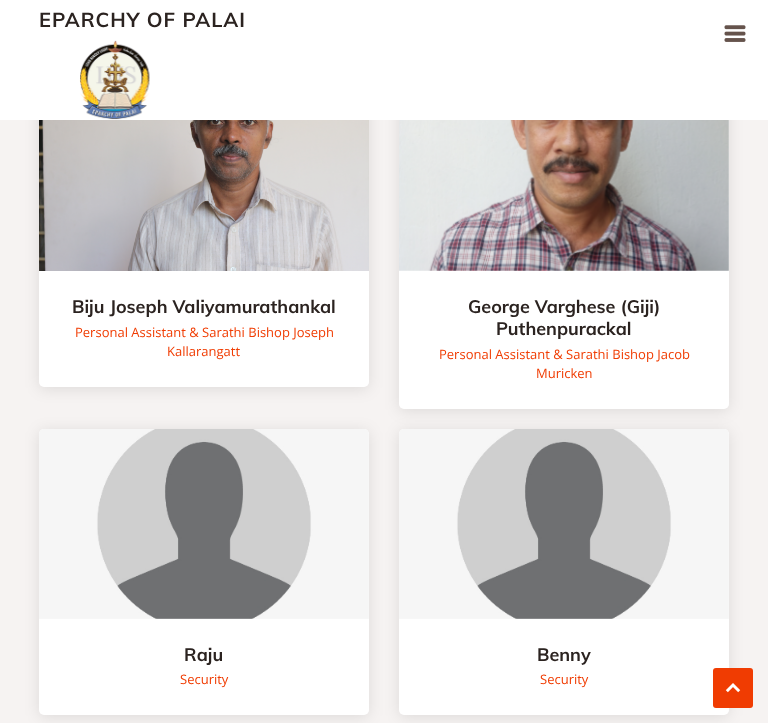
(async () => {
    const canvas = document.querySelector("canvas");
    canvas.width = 768;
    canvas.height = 723;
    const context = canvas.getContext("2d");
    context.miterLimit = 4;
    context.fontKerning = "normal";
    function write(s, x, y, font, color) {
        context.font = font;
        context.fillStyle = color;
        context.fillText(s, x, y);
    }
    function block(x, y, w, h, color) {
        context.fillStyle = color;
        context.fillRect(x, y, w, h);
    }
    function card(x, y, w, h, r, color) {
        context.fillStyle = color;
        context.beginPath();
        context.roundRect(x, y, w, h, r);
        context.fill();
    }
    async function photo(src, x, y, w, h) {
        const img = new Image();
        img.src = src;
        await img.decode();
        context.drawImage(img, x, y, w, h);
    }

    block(0, 0, 768, 723, "rgb(246, 243, 242)");
    context.fillStyle = "rgba(0, 0, 0, 0.1)";
    context.filter = "blur(7.5px)";
    context.beginPath();
    context.roundRect(39, 83, 330, 306, 5);
    context.fill();
    context.filter = "none";
    card(39, 81, 330, 306, 5, "rgb(255, 255, 255)");
    context.fillStyle = "rgba(0, 0, 0, 0.1)";
    context.filter = "blur(7.5px)";
    context.beginPath();
    context.roundRect(399, 83, 330, 328, 5);
    context.fill();
    context.filter = "none";
    card(399, 81, 330, 328, 5, "rgb(255, 255, 255)");
    block(0, 0, 768, 120, "rgb(255, 255, 255)");
    context.letterSpacing = "1px";
    write("EPARCHY OF PALAI", 39, 27, "bold 20px Muli", "rgb(43, 35, 32)");
    await photo("media/1.png", 79, 40, 71, 80);
    await photo("media/2.png", 724, 25, 22, 17);
    await photo("media/3.png", 39, 120, 330, 151);
    context.letterSpacing = "0px";
    write("Biju Joseph Valiyamurathankal", 72, 313, "bold 18px Muli", "rgb(43, 35, 32)");
    write("Personal Assistant & Sarathi Bishop Joseph", 75, 337, "13px Open Sans", "rgb(240, 60, 2)");
    write("Kallarangatt", 167, 356, "13px Open Sans", "rgb(240, 60, 2)");
    await photo("media/4.png", 399, 120, 330, 151);
    write("George Varghese (Giji)", 468, 313, "bold 18px Muli", "rgb(43, 35, 32)");
    write("Puthenpurackal", 496, 335, "bold 18px Muli", "rgb(43, 35, 32)");
    write("Personal Assistant & Sarathi Bishop Jacob", 439, 359, "13px Open Sans", "rgb(240, 60, 2)");
    write("Muricken", 536, 378, "13px Open Sans", "rgb(240, 60, 2)");
    context.fillStyle = "rgba(0, 0, 0, 0.1)";
    context.filter = "blur(7.5px)";
    context.beginPath();
    context.roundRect(39, 431, 330, 286, 5);
    context.fill();
    context.filter = "none";
    card(39, 429, 330, 286, 5, "rgb(255, 255, 255)");
    await photo("media/5.png", 39, 429, 330, 190);
    write("Raju", 184, 661, "bold 18px Muli", "rgb(43, 35, 32)");
    write("Security", 180, 684, "13px Open Sans", "rgb(240, 60, 2)");
    context.fillStyle = "rgba(0, 0, 0, 0.1)";
    context.filter = "blur(7.5px)";
    context.beginPath();
    context.roundRect(399, 431, 330, 286, 5);
    context.fill();
    context.filter = "none";
    card(399, 429, 330, 286, 5, "rgb(255, 255, 255)");
    await photo("media/6.png", 399, 429, 330, 190);
    write("Benny", 537, 661, "bold 18px Muli", "rgb(43, 35, 32)");
    write("Security", 540, 684, "13px Open Sans", "rgb(240, 60, 2)");
    card(713, 668, 40, 40, 3, "rgb(240, 60, 2)");
    await photo("media/7.png", 725, 683, 16, 10);
})();
